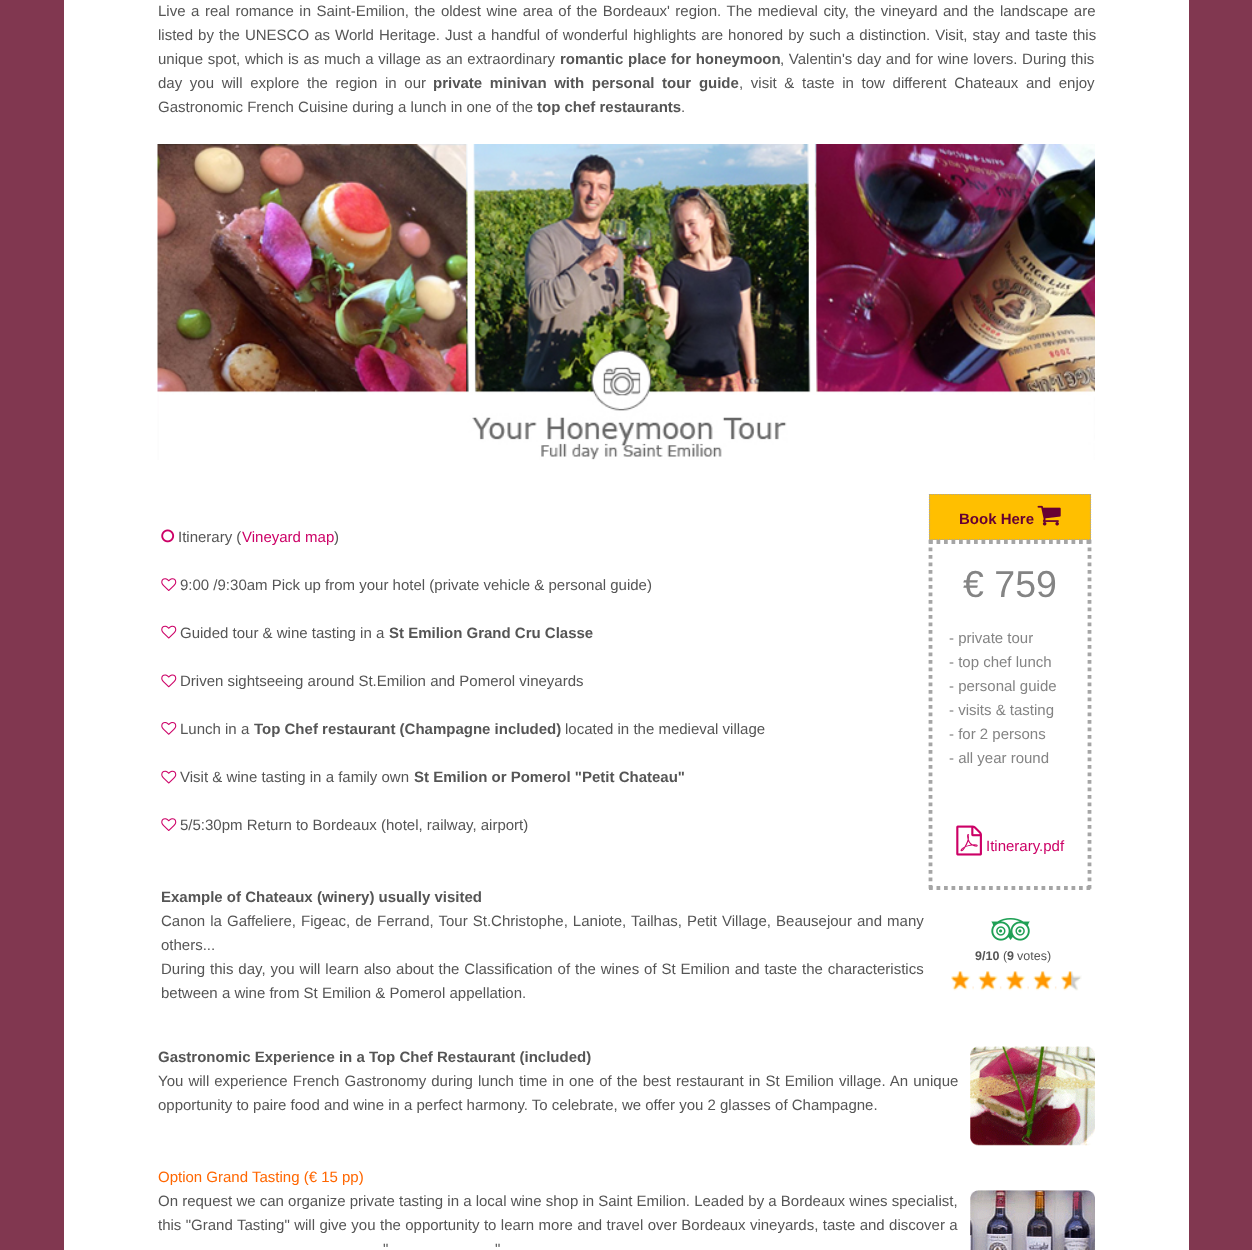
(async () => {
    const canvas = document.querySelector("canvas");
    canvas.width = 1252;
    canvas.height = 1250;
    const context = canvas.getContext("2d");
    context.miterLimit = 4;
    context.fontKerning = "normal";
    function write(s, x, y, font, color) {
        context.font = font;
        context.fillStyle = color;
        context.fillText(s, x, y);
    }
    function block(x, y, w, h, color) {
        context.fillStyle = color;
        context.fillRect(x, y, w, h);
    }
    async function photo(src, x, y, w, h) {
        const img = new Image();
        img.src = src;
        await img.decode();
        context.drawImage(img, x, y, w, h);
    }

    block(0, 0, 1252, 1250, "rgb(129, 55, 80)");
    block(64, 0, 1125, 1250, "rgb(255, 255, 255)");
    context.wordSpacing = "1.35px";
    write("Live a real romance in Saint-Emilion, the oldest wine area of the Bordeaux' region. The medieval city, the vineyard and the landscape are", 158, 16, "15px Liberation Sans", "rgb(85, 85, 85)");
    context.wordSpacing = "0.9px";
    write("listed by the UNESCO as World Heritage. Just a handful of wonderful highlights are honored by such a distinction. Visit, stay and taste this", 158, 40, "15px Liberation Sans", "rgb(85, 85, 85)");
    context.wordSpacing = "0.5px";
    write("unique spot, which is as much a village as an extraordinary", 158, 64, "15px Liberation Sans", "rgb(85, 85, 85)");
    write("romantic place for honeymoon", 560, 64, "bold 15px Liberation Sans", "rgb(85, 85, 85)");
    write(", Valentin's day and for wine lovers. During this", 780, 64, "15px Liberation Sans", "rgb(85, 85, 85)");
    context.wordSpacing = "3.5px";
    write("day you will explore the region in our", 158, 88, "15px Liberation Sans", "rgb(85, 85, 85)");
    write("private minivan with personal tour guide", 433, 88, "bold 15px Liberation Sans", "rgb(85, 85, 85)");
    write(", visit & taste in tow different Chateaux and enjoy", 739, 88, "15px Liberation Sans", "rgb(85, 85, 85)");
    context.wordSpacing = "0px";
    write("Gastronomic French Cuisine during a lunch in one of the", 158, 112, "15px Liberation Sans", "rgb(85, 85, 85)");
    write("top chef restaurants", 537, 112, "bold 15px Liberation Sans", "rgb(85, 85, 85)");
    write(".", 681, 112, "15px Liberation Sans", "rgb(85, 85, 85)");
    await photo("media/1.png", 157, 144, 938, 316);
    await photo("media/2.png", 161, 529, 14, 14);
    write("Itinerary (", 178, 542, "15px Liberation Sans", "rgb(85, 85, 85)");
    write("Vineyard map", 242, 542, "15px Liberation Sans", "rgb(204, 0, 102)");
    write(")", 334, 542, "15px Liberation Sans", "rgb(85, 85, 85)");
    await photo("media/3.png", 161, 578, 16, 13);
    write("9:00 /9:30am Pick up from your hotel (private vehicle & personal guide)", 180, 590, "15px Liberation Sans", "rgb(85, 85, 85)");
    await photo("media/4.png", 161, 625, 16, 14);
    write("Guided tour & wine tasting in a", 180, 638, "15px Liberation Sans", "rgb(85, 85, 85)");
    write("St Emilion Grand Cru Classe", 389, 638, "bold 15px Liberation Sans", "rgb(85, 85, 85)");
    await photo("media/5.png", 161, 674, 16, 14);
    write("Driven sightseeing around St.Emilion and Pomerol vineyards", 180, 686, "15px Liberation Sans", "rgb(85, 85, 85)");
    await photo("media/6.png", 161, 722, 16, 13);
    write("Lunch in a", 180, 734, "15px Liberation Sans", "rgb(85, 85, 85)");
    write("Top Chef restaurant (Champagne included)", 254, 734, "bold 15px Liberation Sans", "rgb(85, 85, 85)");
    write("located in the medieval village", 565, 734, "15px Liberation Sans", "rgb(85, 85, 85)");
    await photo("media/4.png", 161, 770, 16, 14);
    write("Visit & wine tasting in a family own", 180, 782, "15px Liberation Sans", "rgb(85, 85, 85)");
    write("St Emilion or Pomerol \"Petit Chateau\"", 414, 782, "bold 15px Liberation Sans", "rgb(85, 85, 85)");
    await photo("media/3.png", 161, 818, 16, 13);
    write("5/5:30pm Return to Bordeaux (hotel, railway, airport)", 180, 830, "15px Liberation Sans", "rgb(85, 85, 85)");
    write("Example of Chateaux (winery) usually visited", 161, 902, "bold 15px Liberation Sans", "rgb(85, 85, 85)");
    context.wordSpacing = "0.9px";
    write("Canon la Gaffeliere, Figeac, de Ferrand, Tour St.Christophe, Laniote, Tailhas, Petit Village, Beausejour and many", 161, 926, "15px Liberation Sans", "rgb(85, 85, 85)");
    context.wordSpacing = "0px";
    write("others...", 161, 950, "15px Liberation Sans", "rgb(85, 85, 85)");
    context.wordSpacing = "0.75px";
    write("During this day, you will learn also about the Classification of the wines of St Emilion and taste the characteristics", 161, 974, "15px Liberation Sans", "rgb(85, 85, 85)");
    context.wordSpacing = "0px";
    write("between a wine from St Emilion & Pomerol appellation.", 161, 998, "15px Liberation Sans", "rgb(85, 85, 85)");
    block(929, 494, 162, 46, "rgb(255, 191, 0)");
    context.beginPath();
    context.moveTo(929, 494.5);
    context.lineTo(1091, 494.5);
    context.strokeStyle = "rgb(165, 165, 165)";
    context.lineWidth = 1.2;
    context.setLineDash([1.25, 1.25]);
    context.stroke();
    context.beginPath();
    context.moveTo(1090.5, 494);
    context.lineTo(1090.5, 540);
    context.stroke();
    context.beginPath();
    context.moveTo(929, 542);
    context.lineTo(1091, 542);
    context.lineWidth = 3.8;
    context.setLineDash([3.75, 3.75]);
    context.stroke();
    context.beginPath();
    context.moveTo(1089.5, 540);
    context.lineTo(1089.5, 890);
    context.stroke();
    context.beginPath();
    context.moveTo(929, 888);
    context.lineTo(1091, 888);
    context.stroke();
    context.beginPath();
    context.moveTo(930.5, 540);
    context.lineTo(930.5, 890);
    context.stroke();
    context.beginPath();
    context.moveTo(929, 539.5);
    context.lineTo(1091, 539.5);
    context.lineWidth = 1.2;
    context.setLineDash([1.25, 1.25]);
    context.stroke();
    context.beginPath();
    context.moveTo(929.5, 494);
    context.lineTo(929.5, 540);
    context.stroke();
    write("Book Here", 959, 524, "bold 15px Liberation Sans", "rgb(102, 0, 51)");
    await photo("media/7.png", 1037, 505, 24, 21);
    write("€ 759", 963, 597, "37.5px Liberation Sans", "rgb(132, 132, 132)");
    write("- private tour", 949, 643, "15px Liberation Sans", "rgb(132, 132, 132)");
    write("- top chef lunch", 949, 667, "15px Liberation Sans", "rgb(132, 132, 132)");
    write("- personal guide", 949, 691, "15px Liberation Sans", "rgb(132, 132, 132)");
    write("- visits & tasting", 949, 715, "15px Liberation Sans", "rgb(132, 132, 132)");
    write("- for 2 persons", 949, 739, "15px Liberation Sans", "rgb(132, 132, 132)");
    write("- all year round", 949, 763, "15px Liberation Sans", "rgb(132, 132, 132)");
    await photo("media/8.png", 956, 825, 26, 31);
    write("Itinerary.pdf", 986, 851, "15px Liberation Sans", "rgb(204, 0, 102)");
    await photo("media/9.png", 991, 918, 39, 23);
    write("9/10", 975, 960, "bold 12.5px Liberation Sans", "rgb(85, 85, 85)");
    write("(", 1003, 960, "12.5px Liberation Sans", "rgb(85, 85, 85)");
    write("9", 1007, 960, "bold 12.5px Liberation Sans", "rgb(85, 85, 85)");
    write("votes)", 1017, 960, "12.5px Liberation Sans", "rgb(85, 85, 85)");
    await photo("media/10.png", 1071, 971, 11, 20);
    await photo("media/11.png", 951, 971, 121, 20);
    write("Gastronomic Experience in a Top Chef Restaurant (included)", 158, 1062, "bold 15px Liberation Sans", "rgb(85, 85, 85)");
    await photo("media/12.png", 970, 1046, 125, 100);
    context.wordSpacing = "0.9px";
    write("You will experience French Gastronomy during lunch time in one of the best restaurant in St Emilion village. An unique", 158, 1086, "15px Liberation Sans", "rgb(85, 85, 85)");
    context.wordSpacing = "0px";
    write("opportunity to paire food and wine in a perfect harmony. To celebrate, we offer you 2 glasses of Champagne.", 158, 1110, "15px Liberation Sans", "rgb(85, 85, 85)");
    write("Option Grand Tasting (€ 15 pp)", 158, 1182, "15px Liberation Sans", "rgb(255, 102, 0)");
    write("On request we can organize private tasting in a local wine shop in Saint Emilion. Leaded by a Bordeaux wines specialist,", 158, 1206, "15px Liberation Sans", "rgb(85, 85, 85)");
    context.wordSpacing = "0.25px";
    write("this \"Grand Tasting\" will give you the opportunity to learn more and travel over Bordeaux vineyards, taste and discover a", 158, 1230, "15px Liberation Sans", "rgb(85, 85, 85)");
    context.wordSpacing = "1px";
    write("\"", 383, 1254, "15px Liberation Sans", "rgb(85, 85, 85)");
    write("\"", 495, 1254, "15px Liberation Sans", "rgb(85, 85, 85)");
    await photo("media/13.png", 970, 1190, 125, 60);
})();
